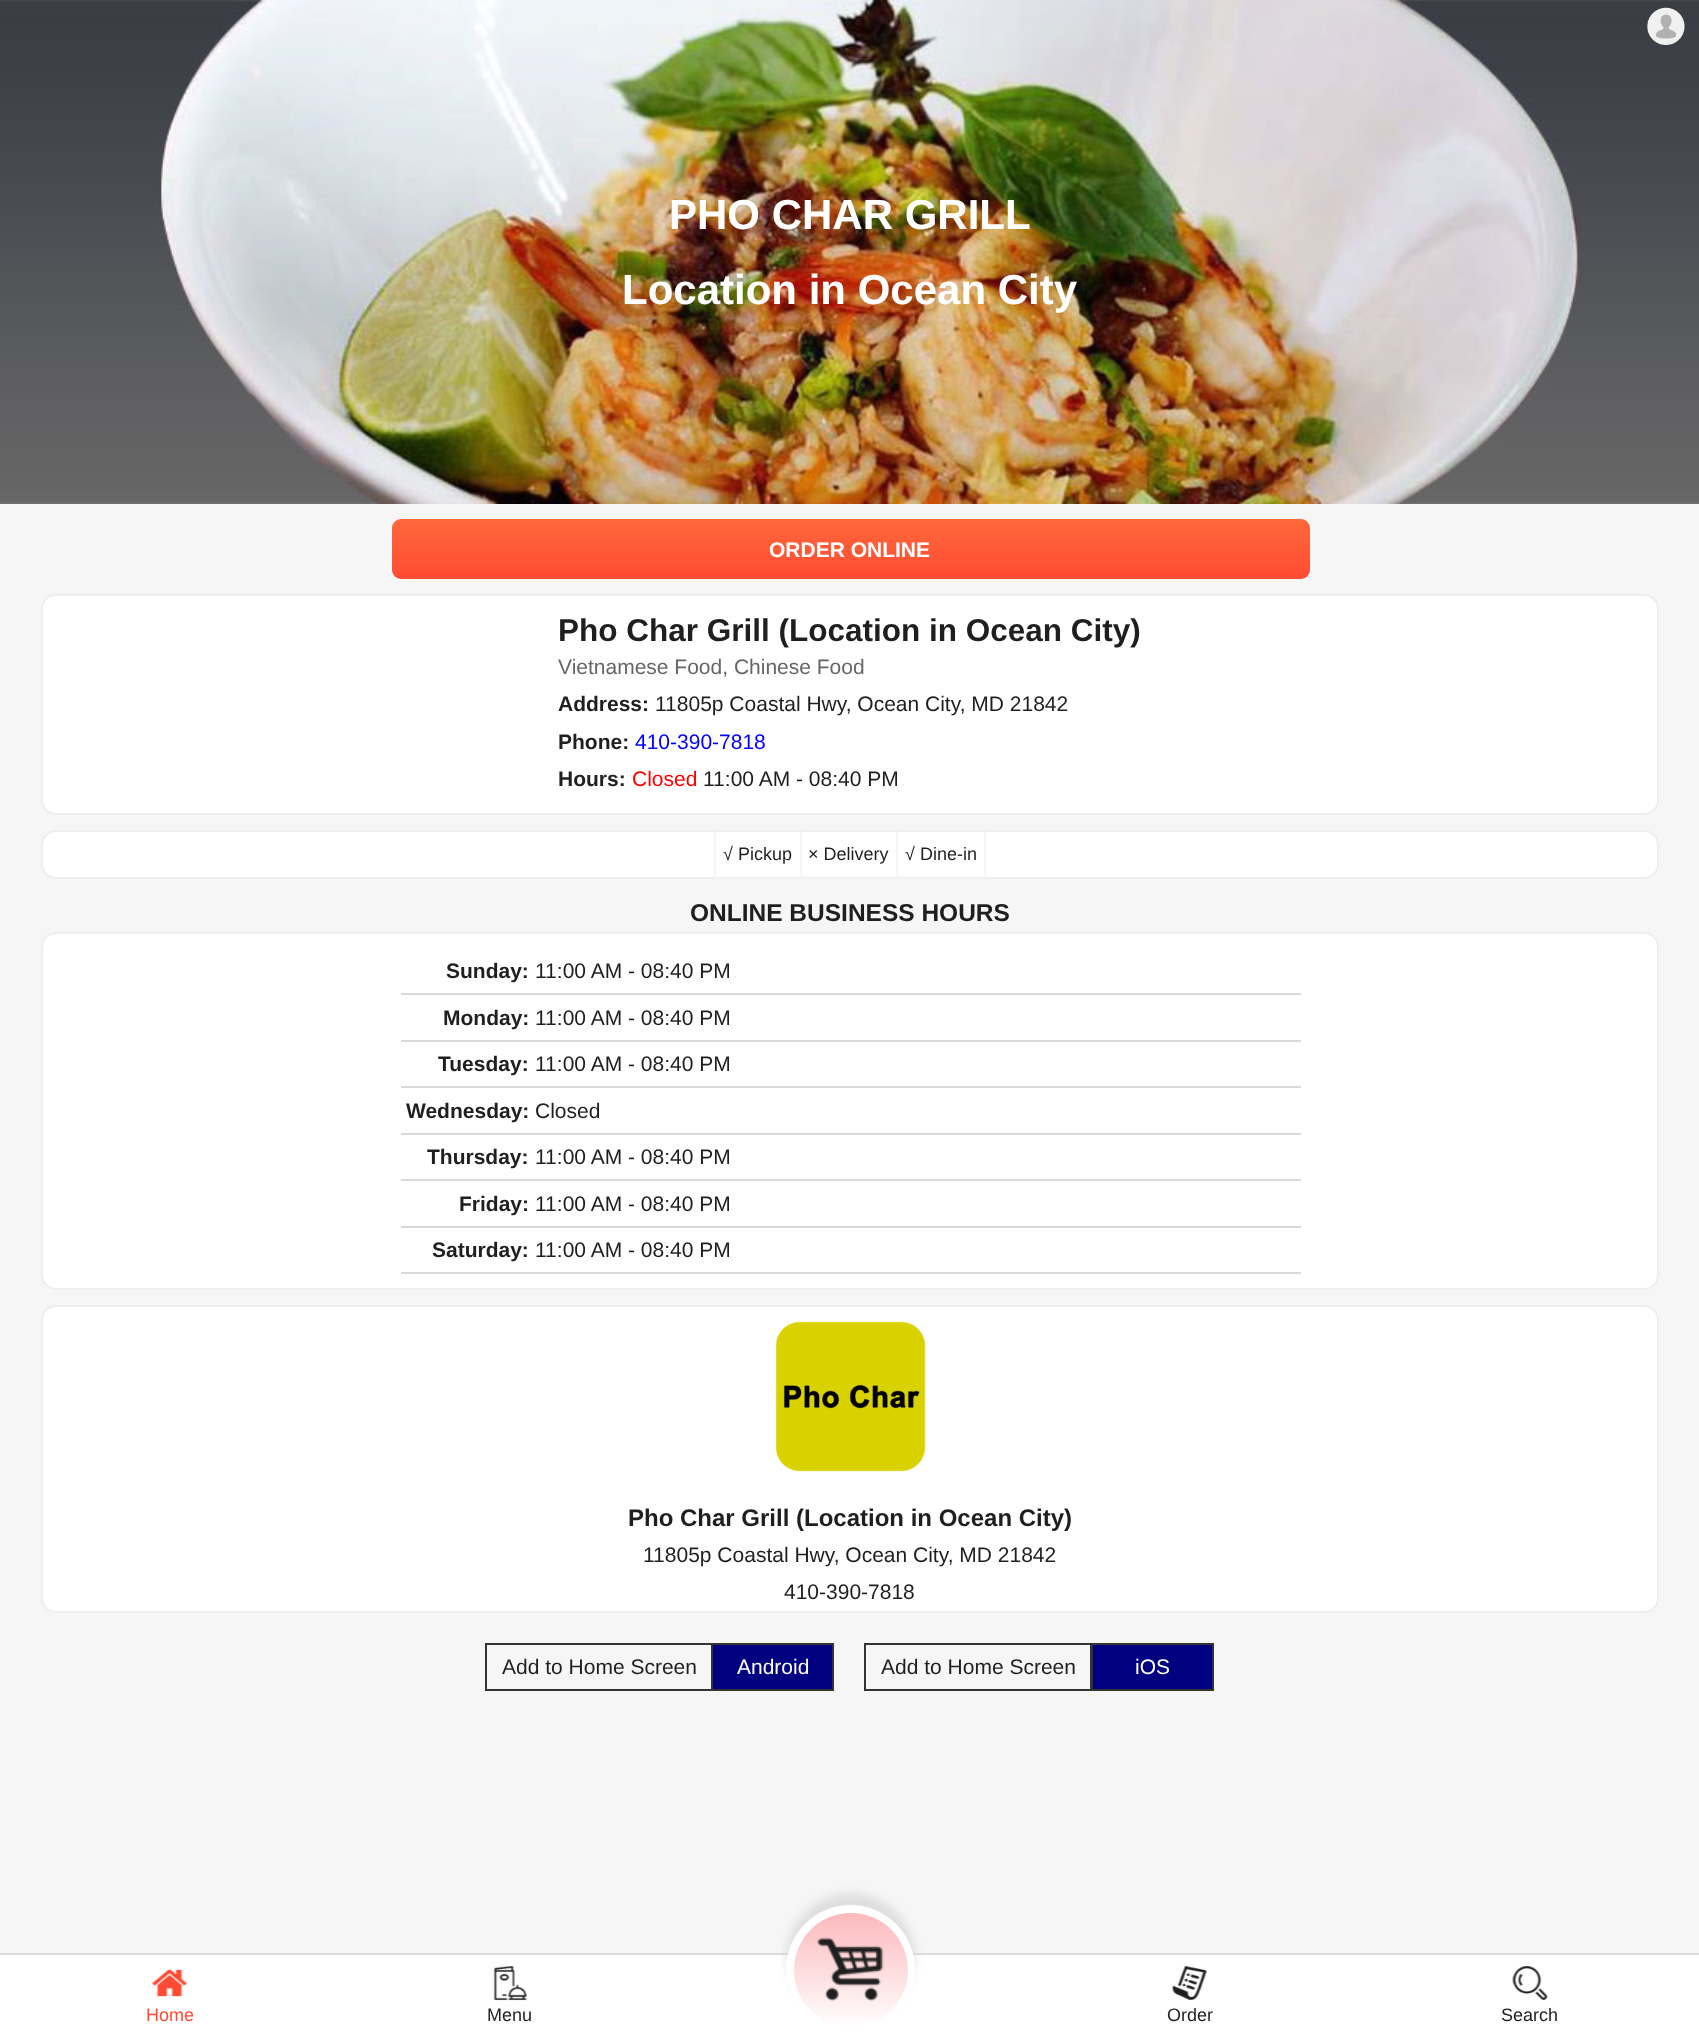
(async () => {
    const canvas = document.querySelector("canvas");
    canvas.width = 1699;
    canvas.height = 2033;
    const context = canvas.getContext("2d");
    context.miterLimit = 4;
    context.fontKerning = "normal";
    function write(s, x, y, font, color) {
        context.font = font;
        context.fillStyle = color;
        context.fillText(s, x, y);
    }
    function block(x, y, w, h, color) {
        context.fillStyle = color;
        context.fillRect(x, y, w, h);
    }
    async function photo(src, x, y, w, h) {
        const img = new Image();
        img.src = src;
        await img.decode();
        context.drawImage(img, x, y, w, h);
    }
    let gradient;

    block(0, 0, 1699, 2033, "rgb(246, 246, 246)");
    await photo("media/2.png", 0, 0, 1699, 504);
    await photo("media/1.png", 1647, 7, 38, 38);
    write("PHO CHAR GRILL", 669, 229, "bold 42px Liberation Sans", "rgb(255, 255, 255)");
    write("Location in Ocean City", 622, 304, "bold 42px Liberation Sans", "rgb(255, 255, 255)");
    gradient = context.createLinearGradient(851, 519, 851, 579);
    gradient.addColorStop(0.05, "rgb(255, 103, 58)");
    gradient.addColorStop(1, "rgb(255, 75, 51)");
    context.fillStyle = gradient;
    context.beginPath();
    context.roundRect(392, 519, 918, 60, 9);
    context.fill();
    write("ORDER ONLINE", 769, 557, "bold 21px Liberation Sans", "rgb(255, 255, 255)");
    context.beginPath();
    context.roundRect(42, 595, 1616, 219, 14);
    context.fill();
    context.strokeStyle = "rgb(238, 238, 238)";
    context.lineWidth = 2;
    context.stroke();
    write("Pho Char Grill (Location in Ocean City)", 558, 641, "bold 31.5px Liberation Sans", "rgb(31, 31, 31)");
    write("Vietnamese Food, Chinese Food", 558, 674, "21px Liberation Sans", "rgb(102, 102, 102)");
    write("Address:", 558, 711, "bold 21px Liberation Sans", "rgb(31, 31, 31)");
    write("11805p Coastal Hwy, Ocean City, MD 21842", 655, 711, "21px Liberation Sans", "rgb(31, 31, 31)");
    write("Phone:", 558, 749, "bold 21px Liberation Sans", "rgb(31, 31, 31)");
    write("410-390-7818", 635, 749, "21px Liberation Sans", "rgb(0, 0, 255)");
    write("Hours:", 558, 786, "bold 21px Liberation Sans", "rgb(31, 31, 31)");
    write("Closed", 632, 786, "21px Liberation Sans", "rgb(255, 0, 0)");
    write("11:00 AM - 08:40 PM", 703, 786, "21px Liberation Sans", "rgb(31, 31, 31)");
    context.fillStyle = "rgb(255, 255, 255)";
    context.beginPath();
    context.roundRect(42, 831, 1616, 47, 14);
    context.fill();
    context.stroke();
    block(800, 831, 2, 47, "rgb(246, 246, 246)");
    block(714, 876, 87, 2, "rgb(246, 246, 246)");
    block(714, 831, 2, 47, "rgb(246, 246, 246)");
    write("√ Pickup", 723, 860, "18px Liberation Sans", "rgb(31, 31, 31)");
    block(896, 831, 2, 47, "rgb(246, 246, 246)");
    block(801, 876, 96, 2, "rgb(246, 246, 246)");
    write("× Delivery", 808, 860, "18px Liberation Sans", "rgb(31, 31, 31)");
    block(984, 831, 2, 47, "rgb(246, 246, 246)");
    block(897, 876, 89, 2, "rgb(246, 246, 246)");
    write("√ Dine-in", 905, 860, "18px Liberation Sans", "rgb(31, 31, 31)");
    write("ONLINE BUSINESS HOURS", 690, 921, "bold 24.5px Liberation Sans", "rgb(31, 31, 31)");
    context.fillStyle = "rgb(255, 255, 255)";
    context.beginPath();
    context.roundRect(42, 933, 1616, 356, 14);
    context.fill();
    context.stroke();
    block(401, 993, 900, 2, "rgb(217, 217, 217)");
    write("Sunday:", 446, 978, "bold 21px Liberation Sans", "rgb(31, 31, 31)");
    write("11:00 AM - 08:40 PM", 535, 978, "21px Liberation Sans", "rgb(31, 31, 31)");
    block(401, 1040, 900, 2, "rgb(217, 217, 217)");
    write("Monday:", 443, 1025, "bold 21px Liberation Sans", "rgb(31, 31, 31)");
    write("11:00 AM - 08:40 PM", 535, 1025, "21px Liberation Sans", "rgb(31, 31, 31)");
    block(401, 1086, 900, 2, "rgb(217, 217, 217)");
    write("Tuesday:", 438, 1071, "bold 21px Liberation Sans", "rgb(31, 31, 31)");
    write("11:00 AM - 08:40 PM", 535, 1071, "21px Liberation Sans", "rgb(31, 31, 31)");
    block(401, 1133, 900, 2, "rgb(217, 217, 217)");
    write("Wednesday:", 406, 1118, "bold 21px Liberation Sans", "rgb(31, 31, 31)");
    write("Closed", 535, 1118, "21px Liberation Sans", "rgb(31, 31, 31)");
    block(401, 1179, 900, 2, "rgb(217, 217, 217)");
    write("Thursday:", 427, 1164, "bold 21px Liberation Sans", "rgb(31, 31, 31)");
    write("11:00 AM - 08:40 PM", 535, 1164, "21px Liberation Sans", "rgb(31, 31, 31)");
    block(401, 1226, 900, 2, "rgb(217, 217, 217)");
    write("Friday:", 459, 1211, "bold 21px Liberation Sans", "rgb(31, 31, 31)");
    write("11:00 AM - 08:40 PM", 535, 1211, "21px Liberation Sans", "rgb(31, 31, 31)");
    block(401, 1272, 900, 2, "rgb(217, 217, 217)");
    write("Saturday:", 432, 1257, "bold 21px Liberation Sans", "rgb(31, 31, 31)");
    write("11:00 AM - 08:40 PM", 535, 1257, "21px Liberation Sans", "rgb(31, 31, 31)");
    context.fillStyle = "rgb(255, 255, 255)";
    context.beginPath();
    context.roundRect(42, 1306, 1616, 306, 14);
    context.fill();
    context.stroke();
    await photo("media/3.png", 775, 1321, 151, 151);
    write("Pho Char Grill (Location in Ocean City)", 628, 1526, "bold 24px Liberation Sans", "rgb(31, 31, 31)");
    write("11805p Coastal Hwy, Ocean City, MD 21842", 643, 1562, "21px Liberation Sans", "rgb(31, 31, 31)");
    write("410-390-7818", 784, 1599, "21px Liberation Sans", "rgb(31, 31, 31)");
    context.strokeStyle = "rgb(51, 51, 51)";
    context.strokeRect(486, 1644, 226, 46);
    write("Add to Home Screen", 502, 1674, "21px Liberation Sans", "rgb(31, 31, 31)");
    context.fillStyle = "rgb(0, 0, 128)";
    context.beginPath();
    context.rect(712, 1644, 121, 46);
    context.fill();
    context.stroke();
    write("Android", 737, 1674, "21px Liberation Sans", "rgb(255, 255, 255)");
    context.strokeRect(865, 1644, 226, 46);
    write("Add to Home Screen", 881, 1674, "21px Liberation Sans", "rgb(31, 31, 31)");
    context.fillStyle = "rgb(0, 0, 128)";
    context.beginPath();
    context.rect(1092, 1644, 121, 46);
    context.fill();
    context.stroke();
    write("iOS", 1135, 1674, "21px Liberation Sans", "rgb(255, 255, 255)");
    block(0, 1955, 1699, 78, "rgb(255, 255, 255)");
    block(0, 1953, 1699, 2, "rgb(221, 221, 221)");
    context.fillStyle = "rgba(191, 191, 191, 0.4)";
    context.filter = "blur(4px)";
    context.beginPath();
    context.roundRect(786, 1893, 129, 129, 64.5);
    context.fill();
    context.filter = "none";
    context.fillStyle = "rgb(255, 255, 255)";
    context.beginPath();
    context.arc(850.5, 1969.5, 64.5, 0, Math.PI * 2);
    context.fill();
    gradient = context.createLinearGradient(851, 1913, 851, 2027);
    gradient.addColorStop(0, "rgb(252, 185, 188)");
    gradient.addColorStop(1, "rgb(255, 255, 255)");
    context.fillStyle = gradient;
    context.beginPath();
    context.arc(851, 1970, 57, 0, Math.PI * 2);
    context.fill();
    await photo("media/4.png", 817, 1937, 67, 65);
    await photo("media/5.png", 152, 1969, 35, 28);
    write("Home", 146, 2021, "18px Liberation Sans", "rgb(255, 75, 51)");
    await photo("media/6.png", 493, 1966, 35, 35);
    write("Menu", 487, 2021, "18px Liberation Sans", "rgb(31, 31, 31)");
    await photo("media/7.png", 1172, 1966, 35, 34);
    write("Order", 1167, 2021, "18px Liberation Sans", "rgb(31, 31, 31)");
    await photo("media/8.png", 1512, 1966, 36, 34);
    write("Search", 1501, 2021, "18px Liberation Sans", "rgb(31, 31, 31)");
})();
